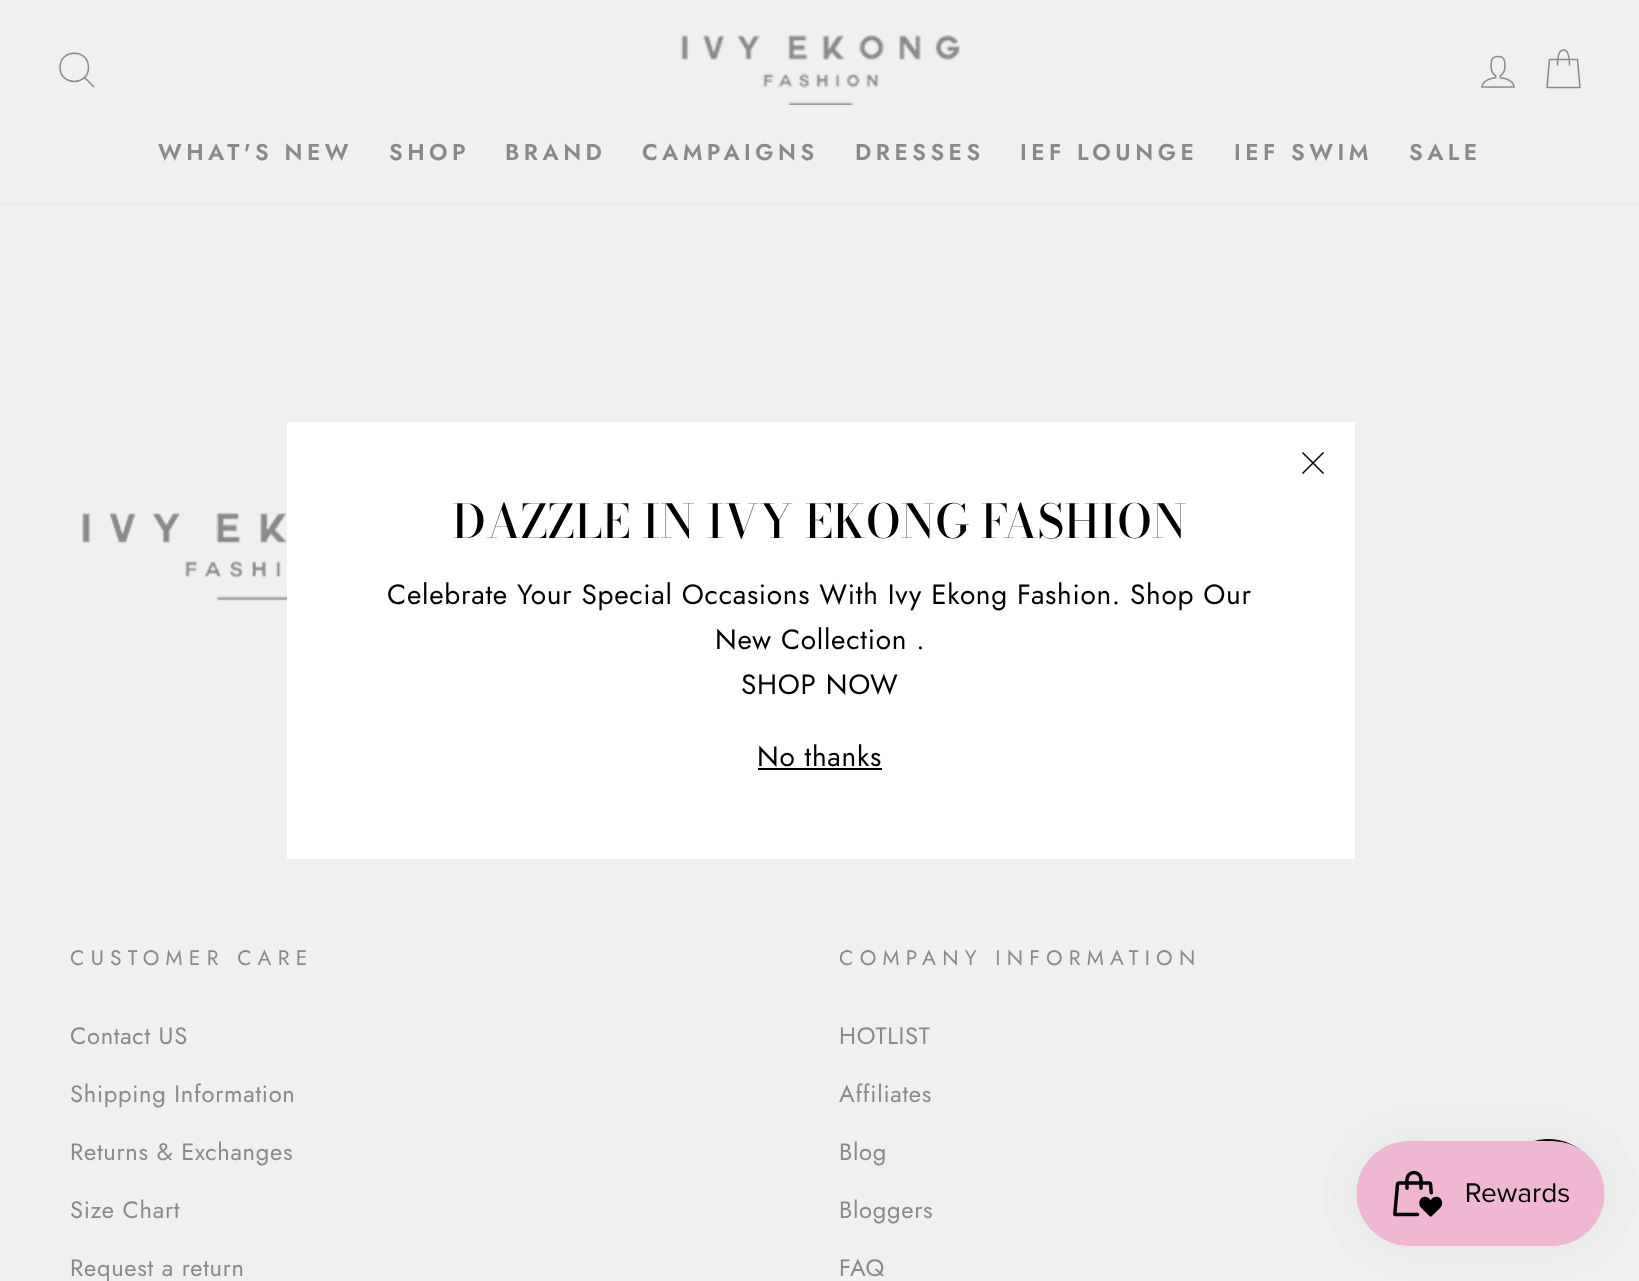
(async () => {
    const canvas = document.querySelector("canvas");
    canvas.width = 1639;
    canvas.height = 1281;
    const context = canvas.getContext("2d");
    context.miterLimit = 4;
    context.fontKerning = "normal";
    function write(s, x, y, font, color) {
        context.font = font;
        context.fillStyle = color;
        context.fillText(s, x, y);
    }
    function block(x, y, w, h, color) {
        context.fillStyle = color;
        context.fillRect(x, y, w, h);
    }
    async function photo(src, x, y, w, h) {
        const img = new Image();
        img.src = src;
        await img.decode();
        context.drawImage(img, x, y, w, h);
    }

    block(0, 0, 1639, 1281, "rgb(240, 240, 240)");
    context.fillStyle = "rgba(138, 138, 138, 0.2)";
    context.filter = "blur(1px)";
    context.beginPath();
    context.rect(0, 0, 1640, 203);
    context.fill();
    context.filter = "none";
    block(0, 0, 1639, 203, "rgb(240, 240, 240)");
    context.beginPath();
    context.moveTo(88.5, 67.5);
    context.bezierCurveTo(88.5, 86, 60, 86, 60, 67.5);
    context.bezierCurveTo(60, 48.5, 88.5, 48.5, 88.5, 67.5);
    context.closePath();
    context.moveTo(94, 87);
    context.lineTo(84.5, 77.5);
    context.strokeStyle = "rgb(138, 138, 138)";
    context.lineWidth = 1.5;
    context.stroke();
    await photo("media/1.png", 680, 35, 281, 70);
    await photo("media/2.png", 1481, 55, 34, 33);
    context.beginPath();
    context.moveTo(1557.5, 65.5);
    context.bezierCurveTo(1557.5, 53.5, 1560, 50, 1563.5, 50);
    context.bezierCurveTo(1567, 50, 1569.5, 53.5, 1569.5, 65.5);
    context.moveTo(1549.5, 59.5);
    context.lineTo(1577.5, 59.5);
    context.lineTo(1580, 87.5);
    context.lineTo(1547, 87.5);
    context.closePath();
    context.stroke();
    context.letterSpacing = "4.5px";
    write("WHAT'S NEW", 158, 160, "600 22.75px Jost", "rgb(138, 138, 138)");
    write("SHOP", 389, 160, "600 22.75px Jost", "rgb(138, 138, 138)");
    write("BRAND", 505, 160, "600 22.75px Jost", "rgb(138, 138, 138)");
    write("CAMPAIGNS", 642, 160, "600 22.75px Jost", "rgb(138, 138, 138)");
    write("DRESSES", 855, 160, "600 22.75px Jost", "rgb(138, 138, 138)");
    write("IEF LOUNGE", 1020, 160, "600 22.75px Jost", "rgb(138, 138, 138)");
    write("IEF SWIM", 1234, 160, "600 22.75px Jost", "rgb(138, 138, 138)");
    write("SALE", 1409, 160, "600 22.75px Jost", "rgb(138, 138, 138)");
    await photo("media/3.png", 82, 512, 205, 89);
    context.letterSpacing = "6.25px";
    write("CUSTOMER CARE", 70, 965, "21px Jost", "rgb(138, 138, 138)");
    context.letterSpacing = "0.7px";
    write("Contact US", 70, 1044, "23.75px Jost", "rgb(138, 138, 138)");
    write("Shipping Information", 70, 1102, "23.75px Jost", "rgb(138, 138, 138)");
    write("Returns & Exchanges", 70, 1160, "23.75px Jost", "rgb(138, 138, 138)");
    write("Size Chart", 70, 1218, "23.75px Jost", "rgb(138, 138, 138)");
    write("Request a return", 70, 1276, "23.75px Jost", "rgb(138, 138, 138)");
    context.letterSpacing = "6.25px";
    write("COMPANY INFORMATION", 839, 965, "21px Jost", "rgb(138, 138, 138)");
    context.letterSpacing = "0.7px";
    write("HOTLIST", 839, 1044, "23.75px Jost", "rgb(138, 138, 138)");
    write("Affiliates", 839, 1102, "23.75px Jost", "rgb(138, 138, 138)");
    write("Blog", 839, 1160, "23.75px Jost", "rgb(138, 138, 138)");
    write("Bloggers", 839, 1218, "23.75px Jost", "rgb(138, 138, 138)");
    write("FAQ", 839, 1276, "23.75px Jost", "rgb(138, 138, 138)");
    block(287, 422, 1068, 437, "rgb(255, 255, 255)");
    context.beginPath();
    context.moveTo(1302.5, 452.5);
    context.lineTo(1323.5, 473.5);
    context.moveTo(1323.5, 452.5);
    context.lineTo(1302.5, 473.5);
    context.strokeStyle = "rgb(0, 0, 0)";
    context.stroke();
    context.letterSpacing = "0px";
    write("DAZZLE IN IVY EKONG FASHION", 452, 538, "500 46.5px Bodoni Moda", "rgb(0, 0, 0)");
    context.letterSpacing = "0.7px";
    write("Celebrate Your Special Occasions With Ivy Ekong Fashion. Shop Our", 387, 604, "28px Jost", "rgb(0, 0, 0)");
    write("New Collection .", 715, 649, "28px Jost", "rgb(0, 0, 0)");
    write("SHOP NOW", 741, 694, "28px Jost", "rgb(0, 0, 0)");
    write("No thanks", 757, 766, "28px Jost", "rgb(0, 0, 0)");
    block(758, 768, 124, 2, "rgb(0, 0, 0)");
    context.fillStyle = "rgb(11, 11, 11)";
    context.beginPath();
    context.arc(1548.5, 1191.5, 52.5, 0, Math.PI * 2);
    context.fill();
    context.fillStyle = "rgba(0, 0, 0, 0.05)";
    context.filter = "blur(22px)";
    context.beginPath();
    context.roundRect(1356, 1141, 249, 105, 52.5);
    context.fill();
    context.filter = "none";
    await photo("media/4.png", 1356, 1141, 249, 105);
})();
